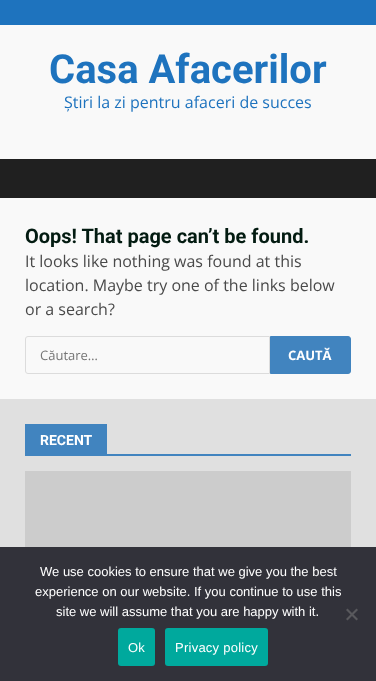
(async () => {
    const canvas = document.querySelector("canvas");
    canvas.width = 376;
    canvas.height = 681;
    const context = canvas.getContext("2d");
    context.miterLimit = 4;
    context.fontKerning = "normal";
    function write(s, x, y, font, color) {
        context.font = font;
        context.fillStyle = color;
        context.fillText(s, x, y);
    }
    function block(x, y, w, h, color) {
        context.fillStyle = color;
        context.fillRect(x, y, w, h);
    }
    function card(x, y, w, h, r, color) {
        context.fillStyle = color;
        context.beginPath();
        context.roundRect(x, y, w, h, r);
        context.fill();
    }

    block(0, 0, 376, 681, "rgb(30, 115, 190)");
    block(0, 25, 376, 374, "rgb(249, 249, 249)");
    write("Casa Afacerilor", 49, 83, "bold 40px Roboto", "rgb(30, 115, 190)");
    write("Știri la zi pentru afaceri de succes", 64, 108, "16px Open Sans", "rgb(30, 115, 190)");
    block(0, 159, 376, 39, "rgb(32, 32, 32)");
    write("Oops! That page can’t be found.", 25, 243, "bold 20px Roboto", "rgb(3, 27, 17)");
    write("It looks like nothing was found at this", 25, 267, "16px Open Sans", "rgb(74, 74, 74)");
    write("location. Maybe try one of the links below", 25, 291, "16px Open Sans", "rgb(74, 74, 74)");
    write("or a search?", 25, 315, "16px Open Sans", "rgb(74, 74, 74)");
    context.beginPath();
    context.roundRect(25.5, 336.5, 244, 37, [2.5, 0, 0, 2.5]);
    context.strokeStyle = "rgb(220, 220, 220)";
    context.stroke();
    write("Căutare…", 40, 360, "13px Open Sans", "rgb(117, 117, 117)");
    context.fillStyle = "rgb(65, 132, 191)";
    context.beginPath();
    context.roundRect(270.5, 336.5, 80, 37, [0, 2.5, 2.5, 0]);
    context.fill();
    context.strokeStyle = "rgb(65, 132, 191)";
    context.stroke();
    write("CAUTĂ", 288, 360, "bold 13px Open Sans", "rgb(255, 255, 255)");
    block(0, 399, 376, 148, "rgb(224, 224, 224)");
    block(25, 454, 326, 2, "rgb(65, 132, 191)");
    block(25, 424, 82, 30, "rgb(65, 132, 191)");
    write("RECENT", 40, 445, "bold 14px Roboto", "rgb(255, 255, 255)");
    block(25, 471, 326, 76, "rgb(204, 204, 204)");
    block(0, 547, 376, 134, "rgb(50, 50, 58)");
    write("We use cookies to ensure that we give you the best", 40, 576, "13px Liberation Sans", "rgb(255, 255, 255)");
    write("experience on our website. If you continue to use this", 35, 596, "13px Liberation Sans", "rgb(255, 255, 255)");
    write("site we will assume that you are happy with it.", 56, 616, "13px Liberation Sans", "rgb(255, 255, 255)");
    context.fillStyle = "rgb(89, 89, 93)";
    context.beginPath();
    context.moveTo(356.5, 608.5);
    context.lineTo(358, 610);
    context.lineTo(347.5, 620.5);
    context.lineTo(346, 619);
    context.closePath();
    context.fill();
    context.beginPath();
    context.moveTo(346, 610);
    context.lineTo(347.5, 608.5);
    context.lineTo(358, 619);
    context.lineTo(356.5, 620.5);
    context.closePath();
    context.fill();
    card(118, 628, 37, 38, 3, "rgb(0, 169, 157)");
    context.letterSpacing = "0.25px";
    write("Ok", 128, 652, "13px Liberation Sans", "rgb(255, 255, 255)");
    card(165, 628, 103, 38, 3, "rgb(0, 169, 157)");
    write("Privacy policy", 175, 652, "13px Liberation Sans", "rgb(255, 255, 255)");
})();
